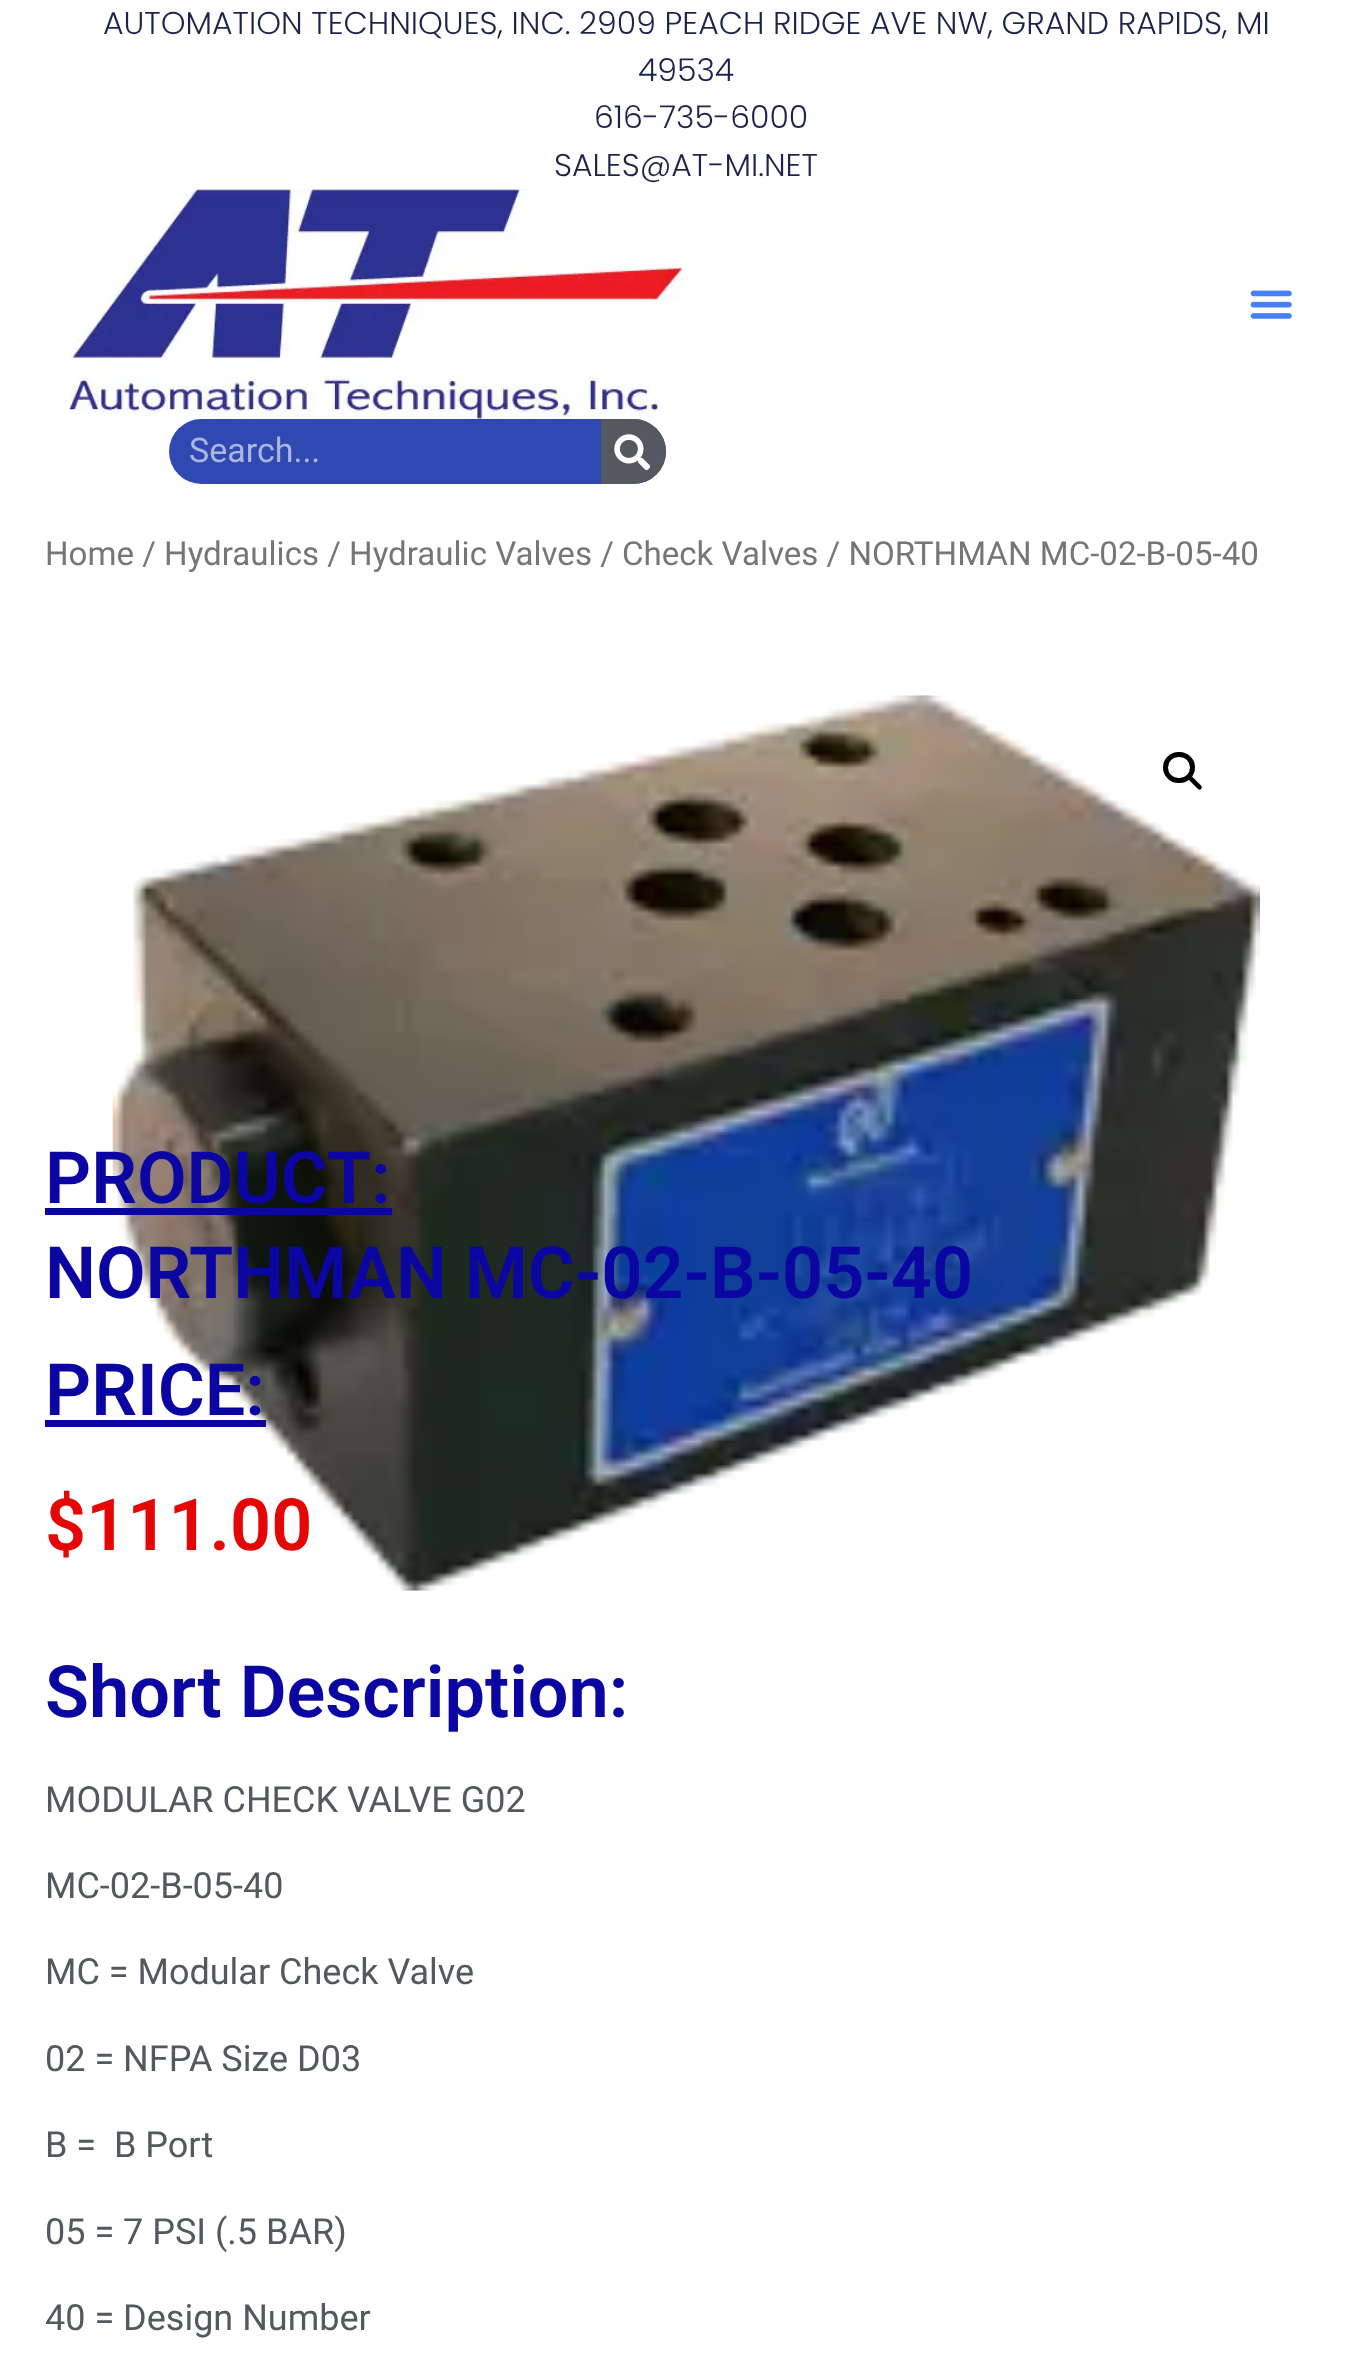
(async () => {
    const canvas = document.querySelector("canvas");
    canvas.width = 1372;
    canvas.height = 2358;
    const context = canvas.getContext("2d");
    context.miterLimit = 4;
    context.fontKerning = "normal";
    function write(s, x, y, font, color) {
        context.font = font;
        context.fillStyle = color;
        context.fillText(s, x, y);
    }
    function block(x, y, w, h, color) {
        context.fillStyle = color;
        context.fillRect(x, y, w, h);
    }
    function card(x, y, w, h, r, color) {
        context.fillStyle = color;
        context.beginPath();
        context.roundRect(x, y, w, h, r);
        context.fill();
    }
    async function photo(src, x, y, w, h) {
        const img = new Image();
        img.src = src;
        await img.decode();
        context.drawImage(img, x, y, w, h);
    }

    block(0, 0, 1372, 2358, "rgb(255, 255, 255)");
    write("AUTOMATION TECHNIQUES, INC. 2909 PEACH RIDGE AVE NW, GRAND RAPIDS, MI", 103, 34, "300 31.5px Poppins", "rgb(28, 36, 75)");
    write("49534", 638, 81, "300 31.5px Poppins", "rgb(28, 36, 75)");
    write("616-735-6000", 594, 128, "300 31.5px Poppins", "rgb(28, 36, 75)");
    write("SALES@AT-MI.NET", 554, 176, "300 31.5px Poppins", "rgb(28, 36, 75)");
    await photo("media/1.png", 69, 189, 613, 230);
    await photo("media/2.png", 1250, 290, 42, 29);
    card(169, 419, 497, 65, 32.5, "rgb(48, 72, 178)");
    write("Search...", 189, 462, "34px Roboto", "rgb(172, 182, 224)");
    context.fillStyle = "rgb(84, 89, 95)";
    context.beginPath();
    context.roundRect(601, 419, 65, 65, [0, 32.5, 32.5, 0]);
    context.fill();
    await photo("media/3.png", 614, 434, 36, 36);
    write("Home / Hydraulics / Hydraulic Valves / Check Valves / NORTHMAN MC-02-B-05-40", 45, 565, "33.1px Roboto", "rgb(118, 118, 118)");
    await photo("media/4.png", 112, 695, 1148, 896);
    context.beginPath();
    context.roundRect(1165.5, 754.5, 27, 26, 13);
    context.strokeStyle = "rgb(0, 0, 0)";
    context.lineWidth = 5;
    context.stroke();
    context.fillStyle = "rgb(0, 0, 0)";
    context.beginPath();
    context.moveTo(1188.5, 776);
    context.bezierCurveTo(1189.5, 775.5, 1190.5, 775.5, 1191.5, 776);
    context.lineTo(1201, 785.5);
    context.bezierCurveTo(1202, 786.5, 1202, 788, 1201, 789);
    context.bezierCurveTo(1200, 790, 1199, 790, 1198, 789);
    context.lineTo(1188.5, 779.5);
    context.bezierCurveTo(1187.5, 778.5, 1187.5, 777, 1188.5, 776);
    context.closePath();
    context.fill();
    write("PRODUCT:", 45, 1203, "600 72px Roboto", "rgb(11, 6, 162)");
    block(45, 1208, 347, 7, "rgb(11, 6, 162)");
    write("NORTHMAN MC-02-B-05-40", 45, 1298, "600 72px Roboto", "rgb(11, 6, 162)");
    write("PRICE:", 45, 1415, "600 72px Roboto", "rgb(11, 6, 162)");
    block(45, 1420, 221, 7, "rgb(11, 6, 162)");
    write("$111.00", 45, 1550, "600 72px Roboto", "rgb(229, 6, 6)");
    write("Short Description:", 45, 1717, "600 72px Roboto", "rgb(11, 6, 162)");
    write("MODULAR CHECK VALVE G02", 45, 1812, "36px Roboto", "rgb(84, 89, 95)");
    write("MC-02-B-05-40", 45, 1898, "36px Roboto", "rgb(84, 89, 95)");
    write("MC = Modular Check Valve", 45, 1984, "36px Roboto", "rgb(84, 89, 95)");
    write("02 = NFPA Size D03", 45, 2071, "36px Roboto", "rgb(84, 89, 95)");
    write("B =  B Port", 45, 2157, "36px Roboto", "rgb(84, 89, 95)");
    write("05 = 7 PSI (.5 BAR)", 45, 2244, "36px Roboto", "rgb(84, 89, 95)");
    write("40 = Design Number", 45, 2330, "36px Roboto", "rgb(84, 89, 95)");
})();
